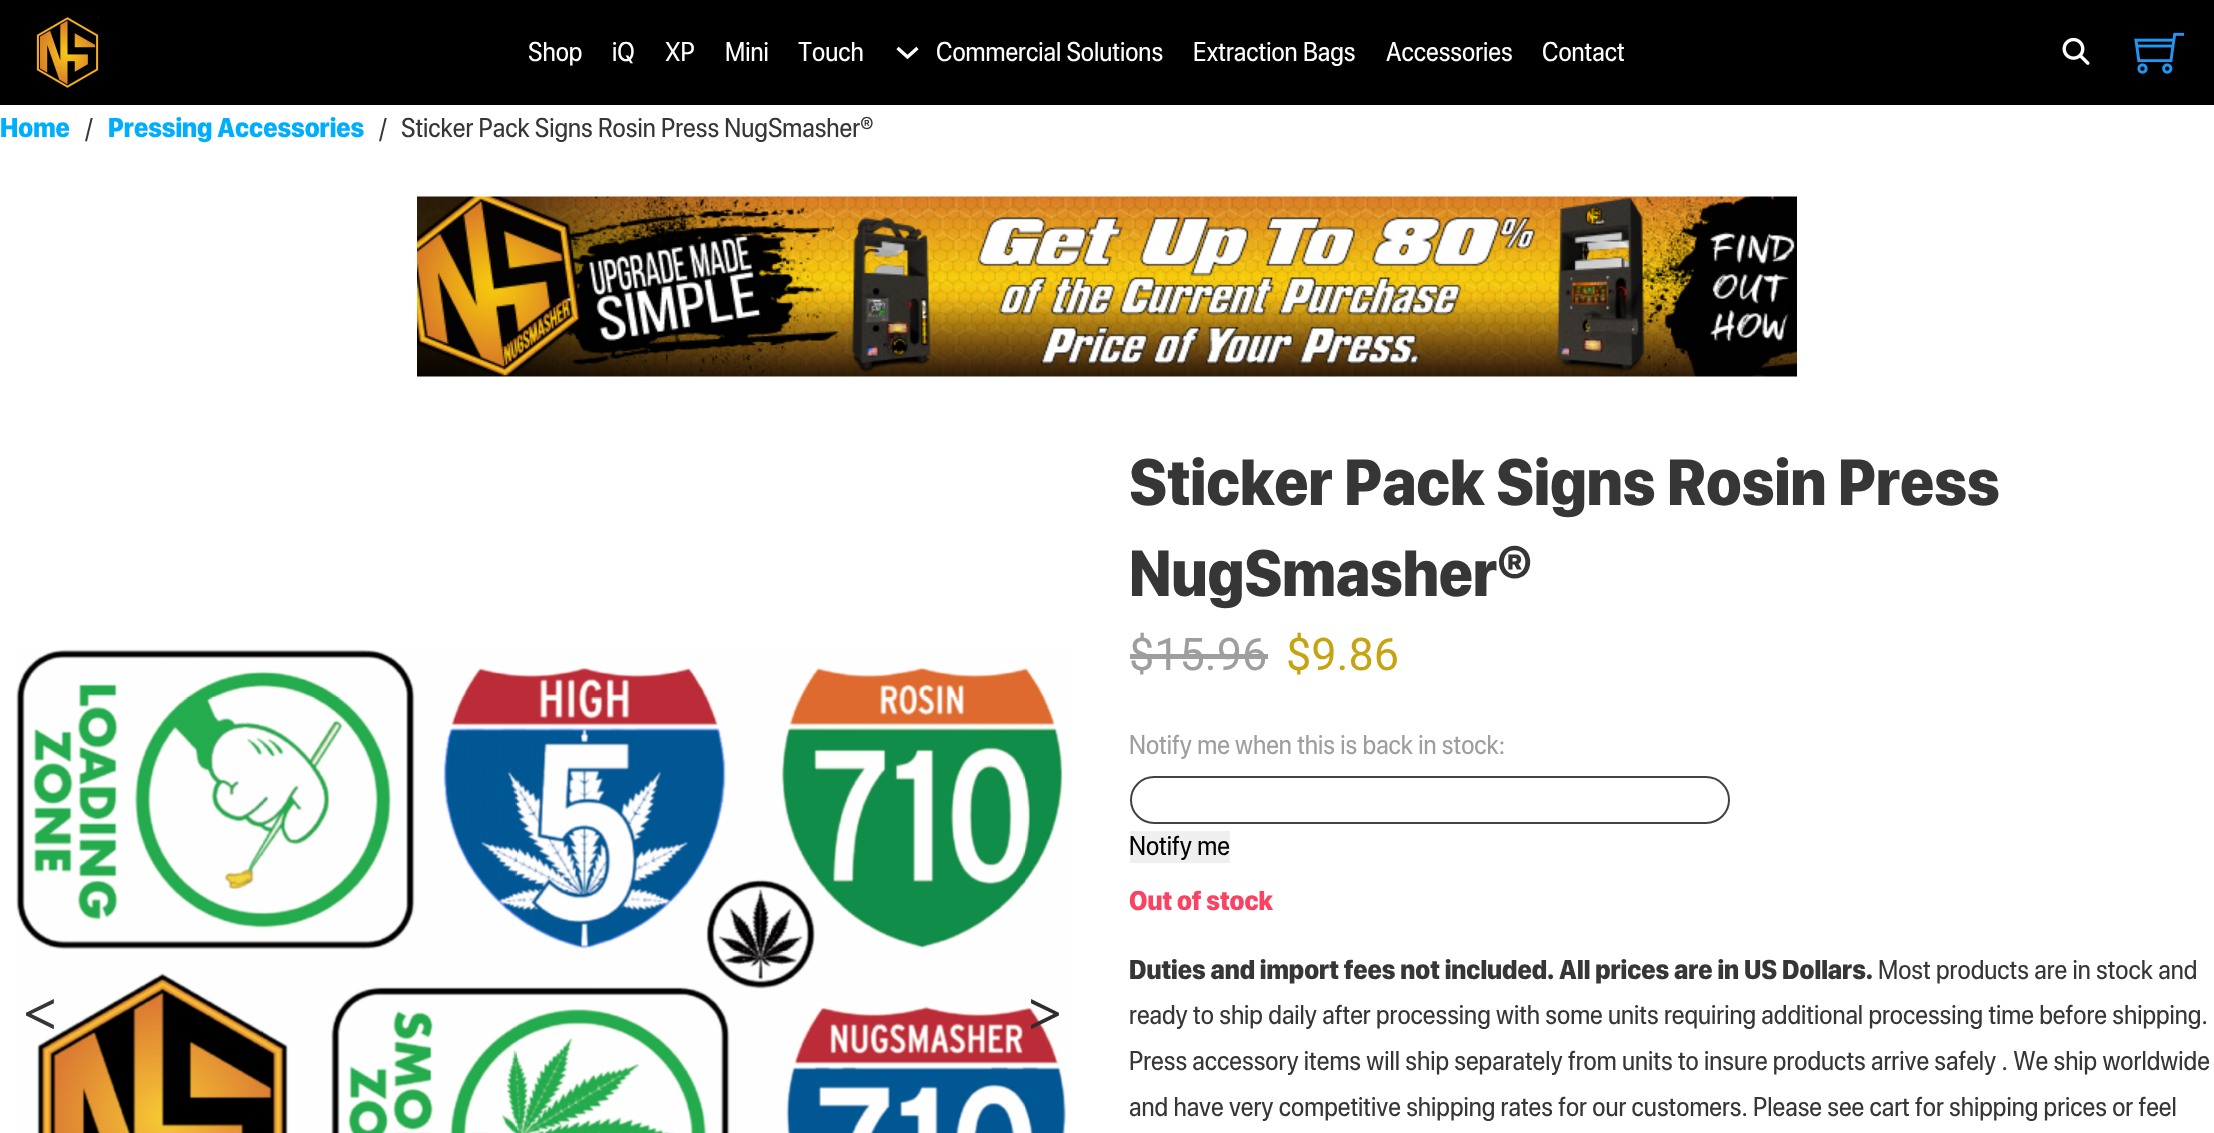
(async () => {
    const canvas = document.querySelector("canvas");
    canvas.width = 2214;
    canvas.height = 1133;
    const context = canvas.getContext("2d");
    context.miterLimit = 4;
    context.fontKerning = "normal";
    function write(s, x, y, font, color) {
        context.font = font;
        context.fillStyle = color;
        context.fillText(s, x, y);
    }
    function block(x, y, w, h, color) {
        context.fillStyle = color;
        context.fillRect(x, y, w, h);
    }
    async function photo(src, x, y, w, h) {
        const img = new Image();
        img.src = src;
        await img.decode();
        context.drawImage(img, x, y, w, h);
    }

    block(0, 0, 2214, 1133, "rgb(255, 255, 255)");
    block(0, 0, 2214, 105, "rgb(0, 0, 0)");
    await photo("media/1.png", 36, 16, 64, 72);
    write("Shop", 528, 61, "27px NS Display", "rgb(255, 255, 255)");
    write("iQ", 612, 61, "27px NS Display", "rgb(255, 255, 255)");
    write("XP", 665, 61, "27px NS Display", "rgb(255, 255, 255)");
    write("Mini", 725, 61, "27px NS Display", "rgb(255, 255, 255)");
    write("Touch", 798, 61, "27px NS Display", "rgb(255, 255, 255)");
    context.beginPath();
    context.moveTo(897.5, 48);
    context.lineTo(907.5, 57);
    context.lineTo(917.5, 48);
    context.strokeStyle = "rgb(255, 255, 255)";
    context.lineWidth = 3.4;
    context.stroke();
    write("Commercial Solutions", 936, 61, "27px NS Display", "rgb(255, 255, 255)");
    write("Extraction Bags", 1193, 61, "27px NS Display", "rgb(255, 255, 255)");
    write("Accessories", 1386, 61, "27px NS Display", "rgb(255, 255, 255)");
    write("Contact", 1542, 61, "27px NS Display", "rgb(255, 255, 255)");
    await photo("media/2.png", 2062, 37, 28, 28);
    await photo("media/3.png", 2134, 32, 50, 42);
    write("Home", 0, 137, "900 27px NS Display", "rgb(0, 174, 255)");
    write("/", 85, 137, "27px NS Display", "rgb(54, 54, 54)");
    write("Pressing Accessories", 108, 137, "900 27px NS Display", "rgb(0, 174, 255)");
    write("/", 379, 137, "27px NS Display", "rgb(54, 54, 54)");
    write("Sticker Pack Signs Rosin Press NugSmasher®", 401, 137, "27px NS Display", "rgb(54, 54, 54)");
    await photo("media/4.png", 417, 196, 1380, 181);
    await photo("media/5.png", 16, 649, 1050, 484);
    write("<", 23, 1034, "bold 60px Liberation Serif", "rgb(54, 54, 54)");
    write(">", 1028, 1034, "bold 60px Liberation Serif", "rgb(49, 44, 44)");
    write("Sticker Pack Signs Rosin Press", 1129, 505, "900 64.75px NS Display", "rgb(54, 54, 54)");
    write("NugSmasher®", 1129, 596, "900 64.75px NS Display", "rgb(54, 54, 54)");
    write("$15.96", 1129, 670, "45px Roboto", "rgb(158, 158, 158)");
    block(1130, 654, 138, 5, "rgb(158, 158, 158)");
    write("$9.86", 1286, 670, "45px Roboto", "rgb(198, 164, 17)");
    write("Notify me when this is back in stock:", 1129, 754, "27px NS Display", "rgb(158, 158, 158)");
    context.beginPath();
    context.roundRect(1131, 777, 598, 46, 23);
    context.strokeStyle = "rgb(66, 66, 66)";
    context.lineWidth = 2;
    context.stroke();
    block(1130, 831, 100, 32, "rgb(239, 239, 239)");
    write("Notify me", 1129, 855, "27px NS Display", "rgb(0, 0, 0)");
    write("Out of stock", 1129, 910, "900 27px NS Display", "rgb(250, 67, 98)");
    write("Duties and import fees not included. All prices are in US Dollars.", 1129, 979, "900 27px NS Display", "rgb(54, 54, 54)");
    write("Most products are in stock and", 1878, 979, "27px NS Display", "rgb(54, 54, 54)");
    write("ready to ship daily after processing with some units requiring additional processing time before shipping.", 1129, 1024, "27px NS Display", "rgb(54, 54, 54)");
    write("Press accessory items will ship separately from units to insure products arrive safely . We ship worldwide", 1129, 1070, "27px NS Display", "rgb(54, 54, 54)");
    write("and have very competitive shipping rates for our customers. Please see cart for shipping prices or feel", 1129, 1116, "27px NS Display", "rgb(54, 54, 54)");
})();
